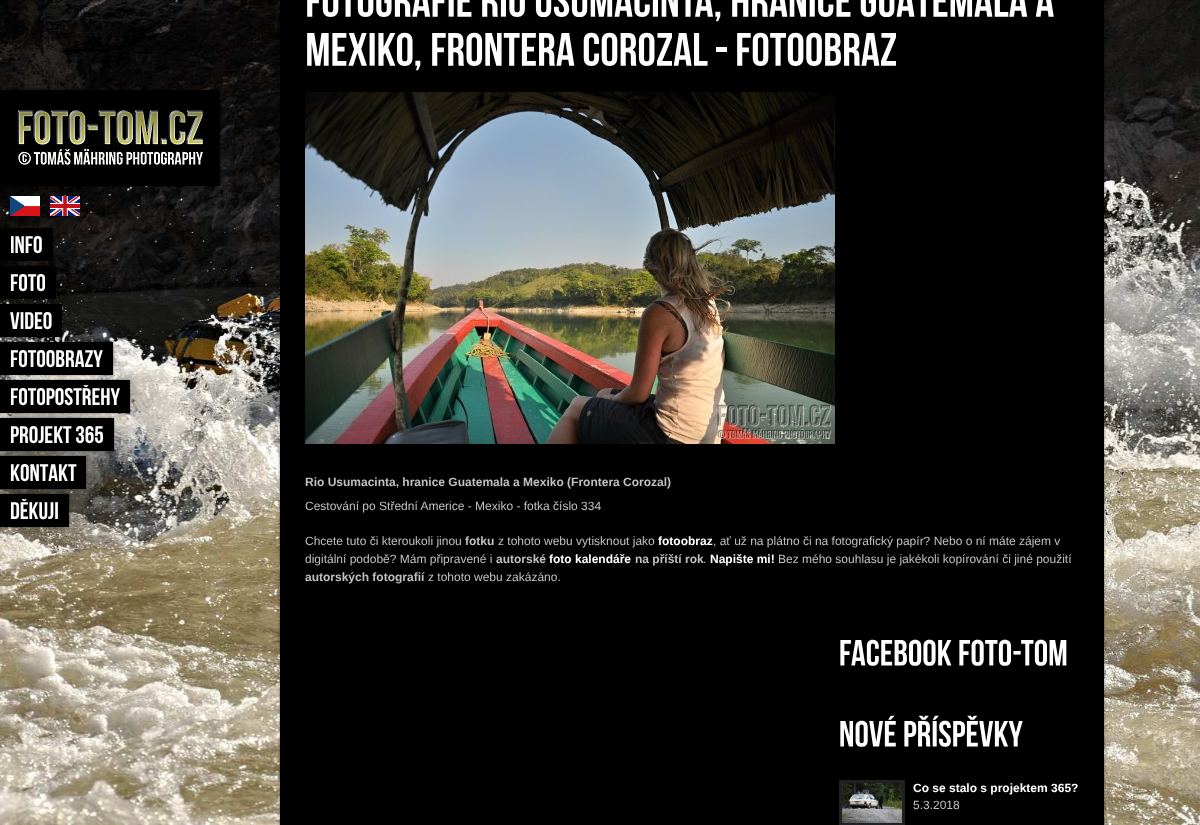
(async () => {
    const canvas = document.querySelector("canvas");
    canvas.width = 1200;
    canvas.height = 825;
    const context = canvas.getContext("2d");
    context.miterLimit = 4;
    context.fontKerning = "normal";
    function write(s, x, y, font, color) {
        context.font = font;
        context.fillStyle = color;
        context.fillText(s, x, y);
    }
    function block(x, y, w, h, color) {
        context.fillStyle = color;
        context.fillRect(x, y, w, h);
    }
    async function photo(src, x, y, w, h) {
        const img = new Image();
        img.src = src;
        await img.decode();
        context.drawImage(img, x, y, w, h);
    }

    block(0, 0, 1200, 825, "rgb(255, 255, 255)");
    await photo("media/1.png", 0, 0, 1200, 825);
    context.fillStyle = "rgba(0, 0, 0, 0.5)";
    context.filter = "blur(1.5px)";
    context.beginPath();
    context.rect(0, 90, 220, 96);
    context.fill();
    context.filter = "none";
    block(0, 90, 220, 96, "rgb(0, 0, 0)");
    await photo("media/2.png", 17, 108, 193, 64);
    await photo("media/3.png", 10, 196, 30, 20);
    await photo("media/4.png", 50, 196, 30, 20);
    context.fillStyle = "rgba(0, 0, 0, 0.5)";
    context.filter = "blur(1.5px)";
    context.beginPath();
    context.rect(0, 228, 53, 33);
    context.fill();
    context.filter = "none";
    block(0, 228, 53, 33, "rgb(0, 0, 0)");
    write("INFO", 10, 253, "24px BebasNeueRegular", "rgb(255, 255, 255)");
    context.fillStyle = "rgba(0, 0, 0, 0.5)";
    context.filter = "blur(1.5px)";
    context.beginPath();
    context.rect(0, 266, 56, 33);
    context.fill();
    context.filter = "none";
    block(0, 266, 56, 33, "rgb(0, 0, 0)");
    write("FOTO", 10, 291, "24px BebasNeueRegular", "rgb(255, 255, 255)");
    context.fillStyle = "rgba(0, 0, 0, 0.5)";
    context.filter = "blur(1.5px)";
    context.beginPath();
    context.rect(0, 304, 62, 33);
    context.fill();
    context.filter = "none";
    block(0, 304, 62, 33, "rgb(0, 0, 0)");
    write("VIDEO", 10, 329, "24px BebasNeueRegular", "rgb(255, 255, 255)");
    context.fillStyle = "rgba(0, 0, 0, 0.5)";
    context.filter = "blur(1.5px)";
    context.beginPath();
    context.rect(0, 342, 113, 33);
    context.fill();
    context.filter = "none";
    block(0, 342, 113, 33, "rgb(0, 0, 0)");
    write("FOTOOBRAZY", 10, 367, "24px BebasNeueRegular", "rgb(255, 255, 255)");
    context.fillStyle = "rgba(0, 0, 0, 0.5)";
    context.filter = "blur(1.5px)";
    context.beginPath();
    context.rect(0, 380, 130, 33);
    context.fill();
    context.filter = "none";
    block(0, 380, 130, 33, "rgb(0, 0, 0)");
    write("FOTOPOSTŘEHY", 10, 405, "24px BebasNeueRegular", "rgb(255, 255, 255)");
    context.fillStyle = "rgba(0, 0, 0, 0.5)";
    context.filter = "blur(1.5px)";
    context.beginPath();
    context.rect(0, 418, 114, 33);
    context.fill();
    context.filter = "none";
    block(0, 418, 114, 33, "rgb(0, 0, 0)");
    write("PROJEKT 365", 10, 443, "24px BebasNeueRegular", "rgb(255, 255, 255)");
    context.fillStyle = "rgba(0, 0, 0, 0.5)";
    context.filter = "blur(1.5px)";
    context.beginPath();
    context.rect(0, 456, 86, 33);
    context.fill();
    context.filter = "none";
    block(0, 456, 86, 33, "rgb(0, 0, 0)");
    write("KONTAKT", 10, 481, "24px BebasNeueRegular", "rgb(255, 255, 255)");
    context.fillStyle = "rgba(0, 0, 0, 0.5)";
    context.filter = "blur(1.5px)";
    context.beginPath();
    context.rect(0, 494, 69, 33);
    context.fill();
    context.filter = "none";
    block(0, 494, 69, 33, "rgb(0, 0, 0)");
    write("DĚKUJI", 10, 519, "24px BebasNeueRegular", "rgb(255, 255, 255)");
    context.fillStyle = "rgba(0, 0, 0, 0.5)";
    context.filter = "blur(1.5px)";
    context.beginPath();
    context.rect(280, -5, 824, 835);
    context.fill();
    context.filter = "none";
    block(280, 0, 824, 825, "rgb(0, 0, 0)");
    await photo("media/5.png", 307, 0, 165, 17);
    await photo("media/6.png", 482, 0, 43, 17);
    await photo("media/7.png", 535, 0, 186, 22);
    await photo("media/8.png", 732, 0, 119, 17);
    await photo("media/9.png", 860, 0, 168, 17);
    await photo("media/10.png", 1035, 0, 19, 17);
    await photo("media/11.png", 307, 32, 114, 39);
    await photo("media/12.png", 432, 32, 143, 34);
    await photo("media/13.png", 583, 32, 125, 34);
    block(716, 47, 11, 5, "rgb(255, 255, 255)");
    await photo("media/14.png", 737, 32, 159, 34);
    await photo("media/15.png", 305, 92, 530, 352);
    write("Rio Usumacinta, hranice Guatemala a Mexiko (Frontera Corozal)", 305, 486, "bold 12px Liberation Sans", "rgb(192, 192, 192)");
    write("Cestování po Střední Americe - Mexiko - fotka číslo 334", 305, 510, "12px Liberation Sans", "rgb(192, 192, 192)");
    write("Chcete tuto či kteroukoli jinou", 305, 545, "12px Liberation Sans", "rgb(192, 192, 192)");
    write("fotku", 465, 545, "bold 12px Liberation Sans", "rgb(192, 192, 192)");
    write("z tohoto webu vytisknout jako", 498, 545, "12px Liberation Sans", "rgb(192, 192, 192)");
    write("fotoobraz", 658, 545, "bold 12px Liberation Sans", "rgb(255, 255, 255)");
    write(", ať už na plátno či na fotografický papír? Nebo o ní máte zájem v", 713, 545, "12px Liberation Sans", "rgb(192, 192, 192)");
    write("digitální podobě? Mám připravené i", 305, 563, "12px Liberation Sans", "rgb(192, 192, 192)");
    write("autorské", 496, 563, "bold 12px Liberation Sans", "rgb(192, 192, 192)");
    write("foto kalendáře", 549, 563, "bold 12px Liberation Sans", "rgb(255, 255, 255)");
    write("na příští rok", 635, 563, "bold 12px Liberation Sans", "rgb(192, 192, 192)");
    write(".", 703, 563, "12px Liberation Sans", "rgb(192, 192, 192)");
    write("Napište mi!", 710, 563, "bold 12px Liberation Sans", "rgb(255, 255, 255)");
    write("Bez mého souhlasu je jakékoli kopírování či jiné použití", 778, 563, "12px Liberation Sans", "rgb(192, 192, 192)");
    write("autorských fotografií", 305, 581, "bold 12px Liberation Sans", "rgb(192, 192, 192)");
    write("z tohoto webu zakázáno.", 428, 581, "12px Liberation Sans", "rgb(192, 192, 192)");
    await photo("media/16.png", 840, 639, 112, 27);
    await photo("media/17.png", 959, 639, 108, 27);
    await photo("media/18.png", 840, 715, 56, 32);
    await photo("media/19.png", 904, 715, 119, 32);
    context.strokeStyle = "rgb(33, 33, 33)";
    context.lineWidth = 3;
    context.strokeRect(840.5, 781.5, 63, 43);
    await photo("media/20.png", 842, 783, 60, 40);
    write("Co se stalo s projektem 365?", 913, 792, "bold 12px Liberation Sans", "rgb(255, 255, 255)");
    write("5.3.2018", 913, 809, "12px Liberation Sans", "rgb(192, 192, 192)");
})();
